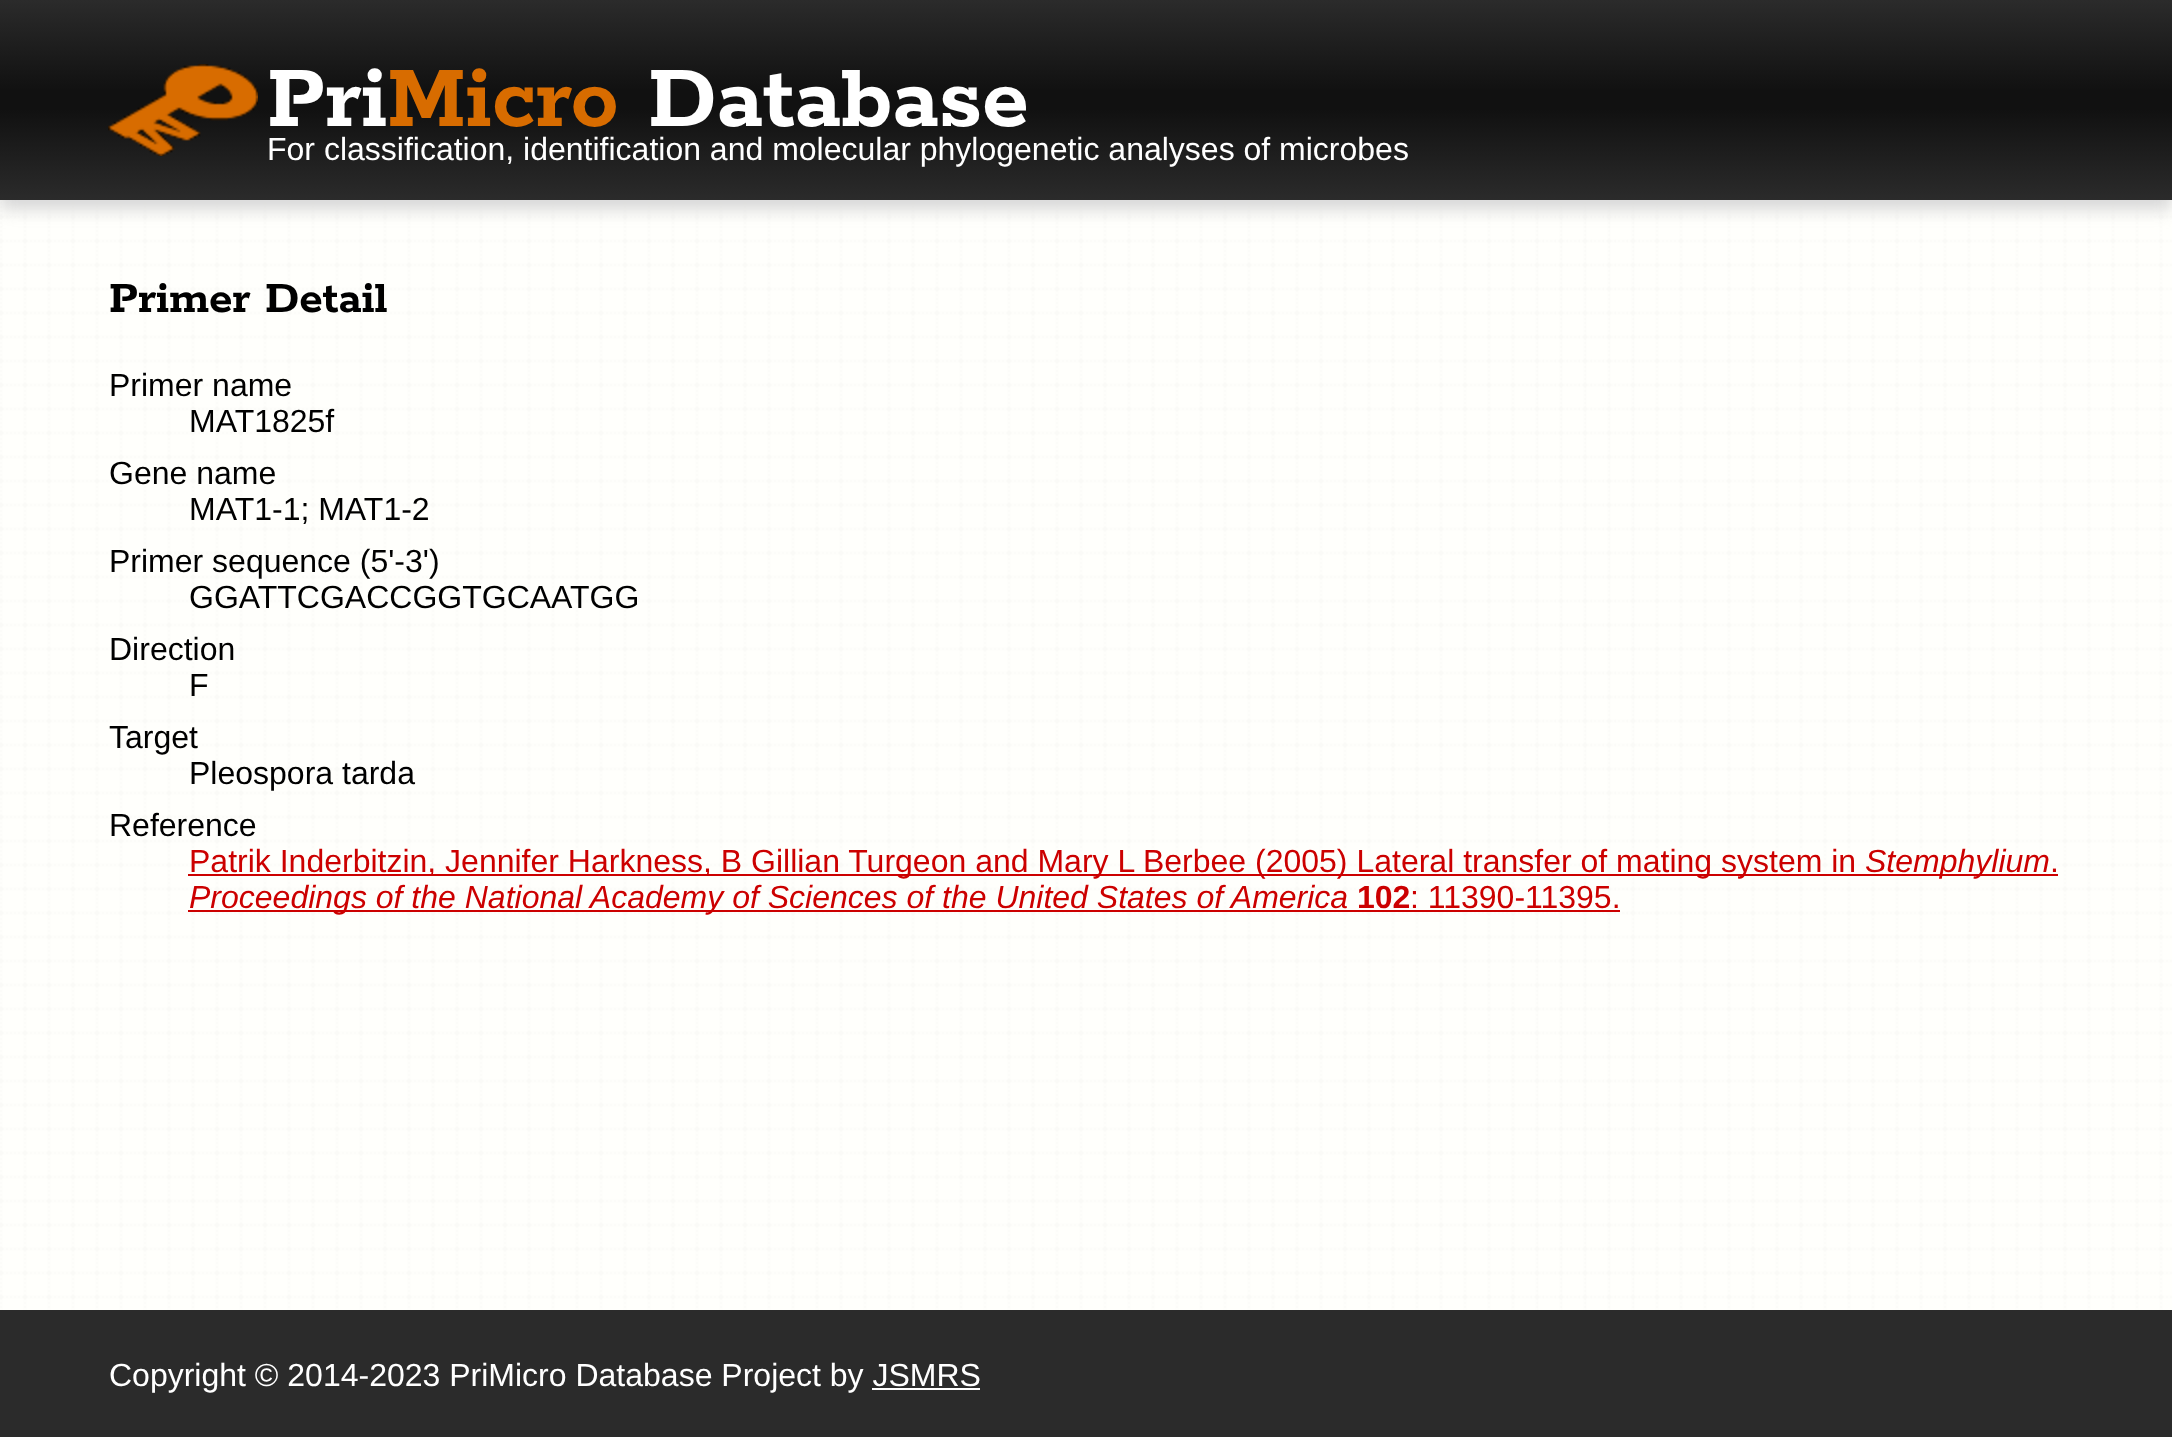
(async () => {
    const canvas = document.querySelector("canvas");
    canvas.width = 2172;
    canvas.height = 1437;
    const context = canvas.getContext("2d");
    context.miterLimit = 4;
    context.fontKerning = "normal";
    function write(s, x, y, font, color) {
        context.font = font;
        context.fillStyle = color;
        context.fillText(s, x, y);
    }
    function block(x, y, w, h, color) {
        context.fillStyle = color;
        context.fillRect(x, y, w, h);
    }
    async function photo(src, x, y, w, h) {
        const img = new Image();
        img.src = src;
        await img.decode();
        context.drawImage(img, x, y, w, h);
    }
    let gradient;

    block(0, 0, 2172, 1437, "rgb(255, 255, 255)");
    await photo("media/1.png", 0, 200, 2172, 1110);
    context.fillStyle = "rgb(216, 216, 216)";
    context.filter = "blur(8px)";
    context.beginPath();
    context.rect(0, 10, 2172, 200);
    context.fill();
    context.filter = "none";
    gradient = context.createLinearGradient(1086, 0, 1086, 200);
    gradient.addColorStop(0, "rgb(43, 43, 43)");
    gradient.addColorStop(0.45, "rgb(17, 17, 17)");
    gradient.addColorStop(0.55, "rgb(17, 17, 17)");
    gradient.addColorStop(1, "rgb(43, 43, 43)");
    context.fillStyle = gradient;
    context.fillRect(0, 0, 2172, 200);
    await photo("media/2.png", 108, 64, 150, 92);
    write("Pri", 267, 126, "bold 96px Rokkitt", "rgb(255, 255, 255)");
    write("Micro", 387, 126, "bold 96px Rokkitt", "rgb(216, 108, 0)");
    write("Database", 648, 126, "bold 96px Rokkitt", "rgb(255, 255, 255)");
    write("For classification, identification and molecular phylogenetic analyses of microbes", 267, 160, "32px Liberation Sans", "rgb(255, 255, 255)");
    write("Primer Detail", 109, 312, "bold 48px Rokkitt", "rgb(0, 0, 0)");
    write("Primer name", 109, 396, "32px Liberation Sans", "rgb(0, 0, 0)");
    write("MAT1825f", 189, 432, "32px Liberation Sans", "rgb(0, 0, 0)");
    write("Gene name", 109, 484, "32px Liberation Sans", "rgb(0, 0, 0)");
    write("MAT1-1; MAT1-2", 189, 520, "32px Liberation Sans", "rgb(0, 0, 0)");
    write("Primer sequence (5'-3')", 109, 572, "32px Liberation Sans", "rgb(0, 0, 0)");
    write("GGATTCGACCGGTGCAATGG", 189, 608, "32px Liberation Sans", "rgb(0, 0, 0)");
    write("Direction", 109, 660, "32px Liberation Sans", "rgb(0, 0, 0)");
    write("F", 189, 696, "32px Liberation Sans", "rgb(0, 0, 0)");
    write("Target", 109, 748, "32px Liberation Sans", "rgb(0, 0, 0)");
    write("Pleospora tarda", 189, 784, "32px Liberation Sans", "rgb(0, 0, 0)");
    write("Reference", 109, 836, "32px Liberation Sans", "rgb(0, 0, 0)");
    block(188, 874, 1870, 2, "rgb(204, 0, 0)");
    write("Patrik Inderbitzin, Jennifer Harkness, B Gillian Turgeon and Mary L Berbee (2005) Lateral transfer of mating system in", 189, 872, "32px Liberation Sans", "rgb(204, 0, 0)");
    write("Stemphylium", 1865, 872, "italic 32px Liberation Sans", "rgb(204, 0, 0)");
    write(".", 2050, 872, "32px Liberation Sans", "rgb(204, 0, 0)");
    block(188, 910, 1432, 2, "rgb(204, 0, 0)");
    write("Proceedings of the National Academy of Sciences of the United States of America", 189, 908, "italic 32px Liberation Sans", "rgb(204, 0, 0)");
    write("102", 1357, 908, "bold 32px Liberation Sans", "rgb(204, 0, 0)");
    write(": 11390-11395.", 1410, 908, "32px Liberation Sans", "rgb(204, 0, 0)");
    block(0, 1310, 2172, 127, "rgb(43, 43, 43)");
    write("Copyright © 2014-2023 PriMicro Database Project by JSMRS", 109, 1386, "32px Liberation Sans", "rgb(255, 255, 255)");
    block(872, 1388, 108, 2, "rgb(255, 255, 255)");
})();
